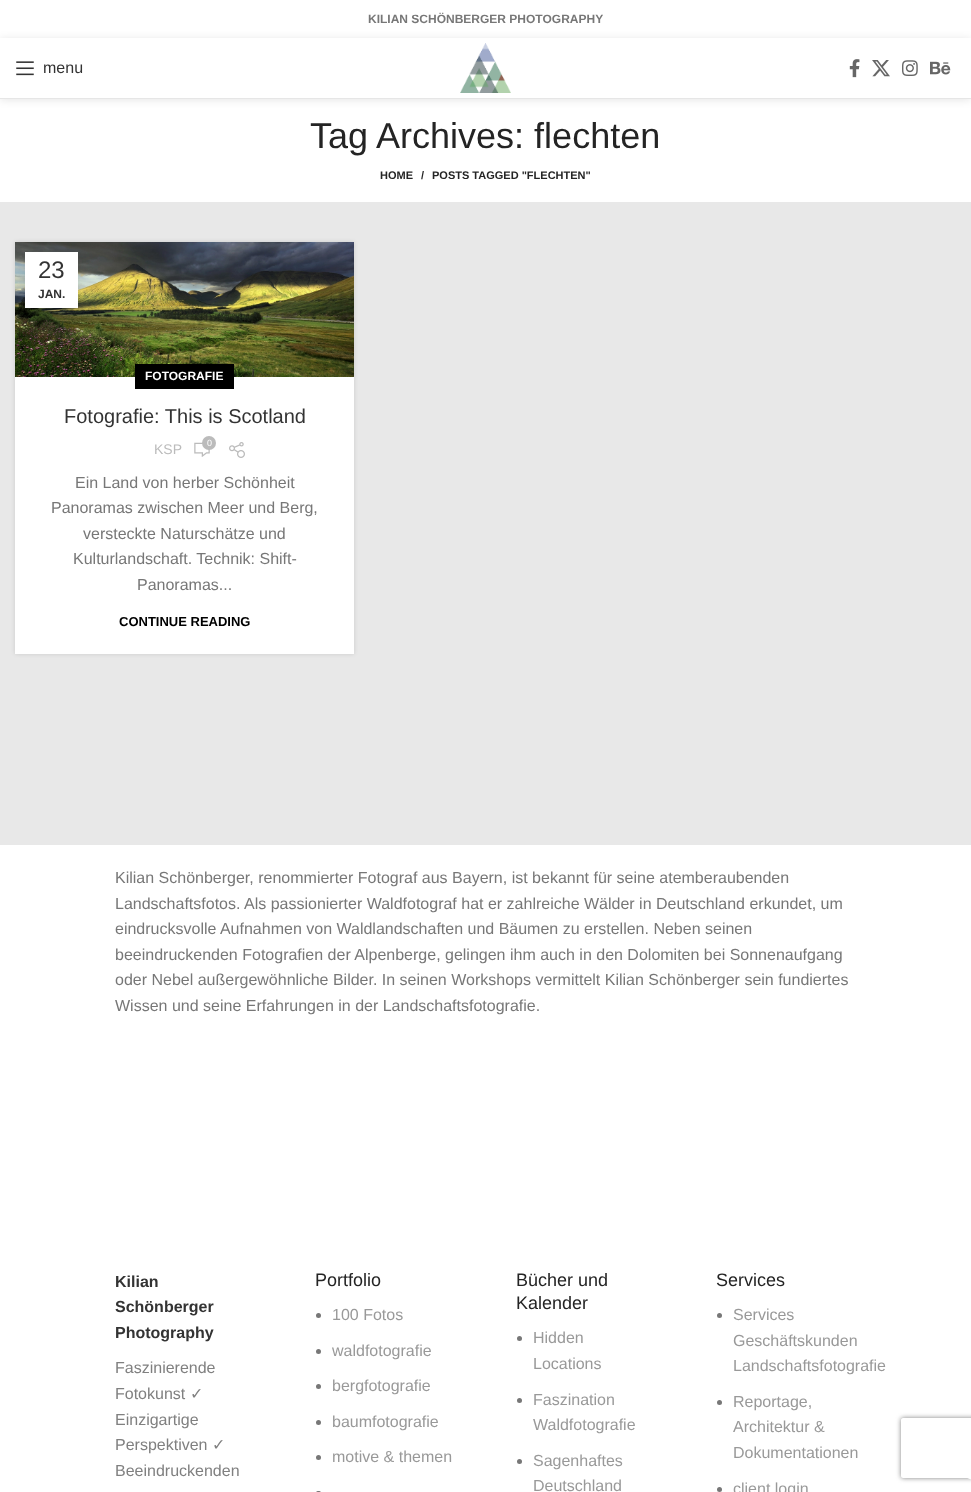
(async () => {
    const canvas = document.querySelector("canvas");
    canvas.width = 971;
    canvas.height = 1492;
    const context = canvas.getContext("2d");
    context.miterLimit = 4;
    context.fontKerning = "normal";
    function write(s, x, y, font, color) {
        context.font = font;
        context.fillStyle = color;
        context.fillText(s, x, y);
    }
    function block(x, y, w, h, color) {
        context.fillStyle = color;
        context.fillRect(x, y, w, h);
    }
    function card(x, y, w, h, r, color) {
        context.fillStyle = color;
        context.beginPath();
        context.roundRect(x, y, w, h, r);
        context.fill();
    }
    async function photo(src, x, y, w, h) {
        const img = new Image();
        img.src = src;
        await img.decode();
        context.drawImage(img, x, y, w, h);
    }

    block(0, 0, 971, 1492, "rgb(255, 255, 255)");
    write("KILIAN SCHÖNBERGER PHOTOGRAPHY", 368, 23, "bold 12px Liberation Sans", "rgb(119, 119, 119)");
    context.fillStyle = "rgba(0, 0, 0, 0.1)";
    context.filter = "blur(4px)";
    context.beginPath();
    context.rect(0, 39, 971, 61);
    context.fill();
    context.filter = "none";
    block(0, 38, 971, 60, "rgb(255, 255, 255)");
    block(0, 98, 971, 1, "rgb(230, 230, 230)");
    await photo("media/1.png", 16, 61, 18, 15);
    write("menu", 43, 73, "16px Liberation Sans", "rgb(51, 51, 51)");
    await photo("media/2.png", 460, 43, 51, 50);
    await photo("media/3.png", 849, 59, 11, 19);
    await photo("media/4.png", 872, 60, 18, 17);
    await photo("media/5.png", 902, 60, 16, 16);
    await photo("media/6.png", 930, 61, 21, 14);
    block(0, 202, 971, 643, "rgb(232, 232, 232)");
    write("Tag Archives: flechten", 310, 148, "36px Liberation Sans", "rgb(36, 36, 36)");
    write("HOME", 380, 179, "bold 11px Liberation Sans", "rgb(36, 36, 36)");
    write("/", 421, 179, "bold 11px Liberation Sans", "rgb(36, 36, 36)");
    write("POSTS TAGGED \"FLECHTEN\"", 432, 179, "bold 11px Liberation Sans", "rgb(36, 36, 36)");
    context.fillStyle = "rgba(0, 0, 0, 0.12)";
    context.filter = "blur(2px)";
    context.beginPath();
    context.rect(15, 242, 339, 412);
    context.fill();
    context.filter = "none";
    await photo("media/7.png", 15, 242, 339, 135);
    context.fillStyle = "rgba(0, 0, 0, 0.1)";
    context.filter = "blur(4.5px)";
    context.beginPath();
    context.rect(25, 252, 53, 56);
    context.fill();
    context.filter = "none";
    block(25, 252, 53, 56, "rgb(255, 255, 255)");
    write("23", 38, 278, "24px Liberation Sans", "rgb(51, 51, 51)");
    write("JAN.", 38, 298, "bold 12px Liberation Sans", "rgb(51, 51, 51)");
    block(15, 377, 339, 277, "rgb(255, 255, 255)");
    block(135, 364, 99, 25, "rgb(0, 0, 0)");
    write("FOTOGRAFIE", 145, 380, "bold 12px Liberation Sans", "rgb(255, 255, 255)");
    write("Fotografie: This is Scotland", 64, 423, "20px Liberation Sans", "rgb(51, 51, 51)");
    await photo("media/8.png", 194, 442, 16, 15);
    context.fillStyle = "rgb(187, 187, 187)";
    context.beginPath();
    context.arc(209, 443, 7, 0, Math.PI * 2);
    context.fill();
    write("0", 207, 446, "9px Liberation Sans", "rgb(255, 255, 255)");
    write("KSP", 154, 454, "14px Liberation Sans", "rgb(187, 187, 187)");
    await photo("media/9.png", 229, 442, 16, 16);
    write("Ein Land von herber Schönheit", 75, 488, "16px Liberation Sans", "rgb(119, 119, 119)");
    write("Panoramas zwischen Meer und Berg,", 51, 513, "16px Liberation Sans", "rgb(119, 119, 119)");
    write("versteckte Naturschätze und", 83, 539, "16px Liberation Sans", "rgb(119, 119, 119)");
    write("Kulturlandschaft. Technik: Shift-", 73, 564, "16px Liberation Sans", "rgb(119, 119, 119)");
    write("Panoramas...", 137, 590, "16px Liberation Sans", "rgb(119, 119, 119)");
    write("CONTINUE READING", 119, 626, "bold 13px Liberation Sans", "rgb(0, 0, 0)");
    write("Kilian Schönberger, renommierter Fotograf aus Bayern, ist bekannt für seine atemberaubenden", 115, 883, "16px Liberation Sans", "rgb(119, 119, 119)");
    write("Landschaftsfotos. Als passionierter Waldfotograf hat er zahlreiche Wälder in Deutschland erkundet, um", 115, 909, "16px Liberation Sans", "rgb(119, 119, 119)");
    write("eindrucksvolle Aufnahmen von Waldlandschaften und Bäumen zu erstellen. Neben seinen", 115, 934, "16px Liberation Sans", "rgb(119, 119, 119)");
    write("beeindruckenden Fotografien der Alpenberge, gelingen ihm auch in den Dolomiten bei Sonnenaufgang", 115, 960, "16px Liberation Sans", "rgb(119, 119, 119)");
    write("oder Nebel außergewöhnliche Bilder. In seinen Workshops vermittelt Kilian Schönberger sein fundiertes", 115, 985, "16px Liberation Sans", "rgb(119, 119, 119)");
    write("Wissen und seine Erfahrungen in der Landschaftsfotografie.", 115, 1011, "16px Liberation Sans", "rgb(119, 119, 119)");
    write("Kilian", 115, 1287, "bold 16px Liberation Sans", "rgb(51, 51, 51)");
    write("Schönberger", 115, 1312, "bold 16px Liberation Sans", "rgb(51, 51, 51)");
    write("Photography", 115, 1338, "bold 16px Liberation Sans", "rgb(51, 51, 51)");
    write("Faszinierende", 115, 1373, "16px Liberation Sans", "rgb(128, 128, 128)");
    write("Fotokunst", 115, 1399, "16px Liberation Sans", "rgb(128, 128, 128)");
    write("✓", 190, 1399, "16px DejaVu Sans", "rgb(128, 128, 128)");
    write("Einzigartige", 115, 1425, "16px Liberation Sans", "rgb(128, 128, 128)");
    write("Perspektiven", 115, 1450, "16px Liberation Sans", "rgb(128, 128, 128)");
    write("✓", 212, 1450, "16px DejaVu Sans", "rgb(128, 128, 128)");
    write("Beeindruckenden", 115, 1476, "16px Liberation Sans", "rgb(128, 128, 128)");
    write("Portfolio", 315, 1286, "18px Liberation Sans", "rgb(36, 36, 36)");
    context.fillStyle = "rgb(119, 119, 119)";
    context.beginPath();
    context.arc(318.5, 1315.5, 2.5, 0, Math.PI * 2);
    context.fill();
    write("100 Fotos", 332, 1320, "16px Liberation Sans", "rgb(153, 153, 153)");
    context.fillStyle = "rgb(119, 119, 119)";
    context.beginPath();
    context.arc(318.5, 1351.5, 2.5, 0, Math.PI * 2);
    context.fill();
    write("waldfotografie", 332, 1356, "16px Liberation Sans", "rgb(153, 153, 153)");
    context.fillStyle = "rgb(119, 119, 119)";
    context.beginPath();
    context.arc(318.5, 1386.5, 2.5, 0, Math.PI * 2);
    context.fill();
    write("bergfotografie", 332, 1391, "16px Liberation Sans", "rgb(153, 153, 153)");
    context.fillStyle = "rgb(119, 119, 119)";
    context.beginPath();
    context.arc(318.5, 1422.5, 2.5, 0, Math.PI * 2);
    context.fill();
    write("baumfotografie", 332, 1427, "16px Liberation Sans", "rgb(153, 153, 153)");
    context.fillStyle = "rgb(119, 119, 119)";
    context.beginPath();
    context.arc(318.5, 1457.5, 2.5, 0, Math.PI * 2);
    context.fill();
    write("motive & themen", 332, 1462, "16px Liberation Sans", "rgb(153, 153, 153)");
    card(316, 1491, 5, 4, 2.5, "rgb(119, 119, 119)");
    write("Bücher und", 516, 1286, "18px Liberation Sans", "rgb(36, 36, 36)");
    write("Kalender", 516, 1309, "18px Liberation Sans", "rgb(36, 36, 36)");
    context.fillStyle = "rgb(119, 119, 119)";
    context.beginPath();
    context.arc(519.5, 1338.5, 2.5, 0, Math.PI * 2);
    context.fill();
    write("Hidden", 533, 1343, "16px Liberation Sans", "rgb(153, 153, 153)");
    write("Locations", 533, 1369, "16px Liberation Sans", "rgb(153, 153, 153)");
    context.fillStyle = "rgb(119, 119, 119)";
    context.beginPath();
    context.arc(519.5, 1400.5, 2.5, 0, Math.PI * 2);
    context.fill();
    write("Faszination", 533, 1405, "16px Liberation Sans", "rgb(153, 153, 153)");
    write("Waldfotografie", 533, 1430, "16px Liberation Sans", "rgb(153, 153, 153)");
    context.fillStyle = "rgb(119, 119, 119)";
    context.beginPath();
    context.arc(519.5, 1461.5, 2.5, 0, Math.PI * 2);
    context.fill();
    write("Sagenhaftes", 533, 1466, "16px Liberation Sans", "rgb(153, 153, 153)");
    write("Deutschland", 533, 1491, "16px Liberation Sans", "rgb(153, 153, 153)");
    write("Services", 716, 1286, "18px Liberation Sans", "rgb(36, 36, 36)");
    context.fillStyle = "rgb(119, 119, 119)";
    context.beginPath();
    context.arc(719.5, 1315.5, 2.5, 0, Math.PI * 2);
    context.fill();
    write("Services", 733, 1320, "16px Liberation Sans", "rgb(153, 153, 153)");
    write("Geschäftskunden", 733, 1346, "16px Liberation Sans", "rgb(153, 153, 153)");
    write("Landschaftsfotografie", 733, 1371, "16px Liberation Sans", "rgb(153, 153, 153)");
    context.fillStyle = "rgb(119, 119, 119)";
    context.beginPath();
    context.arc(719.5, 1402.5, 2.5, 0, Math.PI * 2);
    context.fill();
    write("Reportage,", 733, 1407, "16px Liberation Sans", "rgb(153, 153, 153)");
    write("Architektur &", 733, 1432, "16px Liberation Sans", "rgb(153, 153, 153)");
    write("Dokumentationen", 733, 1458, "16px Liberation Sans", "rgb(153, 153, 153)");
    context.fillStyle = "rgb(119, 119, 119)";
    context.beginPath();
    context.arc(719.5, 1489.5, 2.5, 0, Math.PI * 2);
    context.fill();
    write("client login", 733, 1494, "16px Liberation Sans", "rgb(153, 153, 153)");
    context.save();
    context.beginPath();
    context.moveTo(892, 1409);
    context.lineTo(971, 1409);
    context.lineTo(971, 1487);
    context.lineTo(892, 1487);
    context.closePath();
    context.moveTo(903, 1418);
    context.lineTo(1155, 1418);
    context.bezierCurveTo(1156, 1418, 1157, 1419, 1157, 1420);
    context.lineTo(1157, 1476);
    context.bezierCurveTo(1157, 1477, 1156, 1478, 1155, 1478);
    context.lineTo(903, 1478);
    context.bezierCurveTo(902, 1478, 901, 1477, 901, 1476);
    context.lineTo(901, 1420);
    context.bezierCurveTo(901, 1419, 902, 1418, 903, 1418);
    context.closePath();
    context.clip("evenodd");
    context.fillStyle = "rgb(128, 128, 128)";
    context.filter = "blur(2.5px)";
    context.beginPath();
    context.roundRect(901, 1418, 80, 60, 2);
    context.fill();
    context.filter = "none";
    context.restore();
    card(959, 1440, 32, 40, 20, "rgb(255, 255, 255)");
})();
